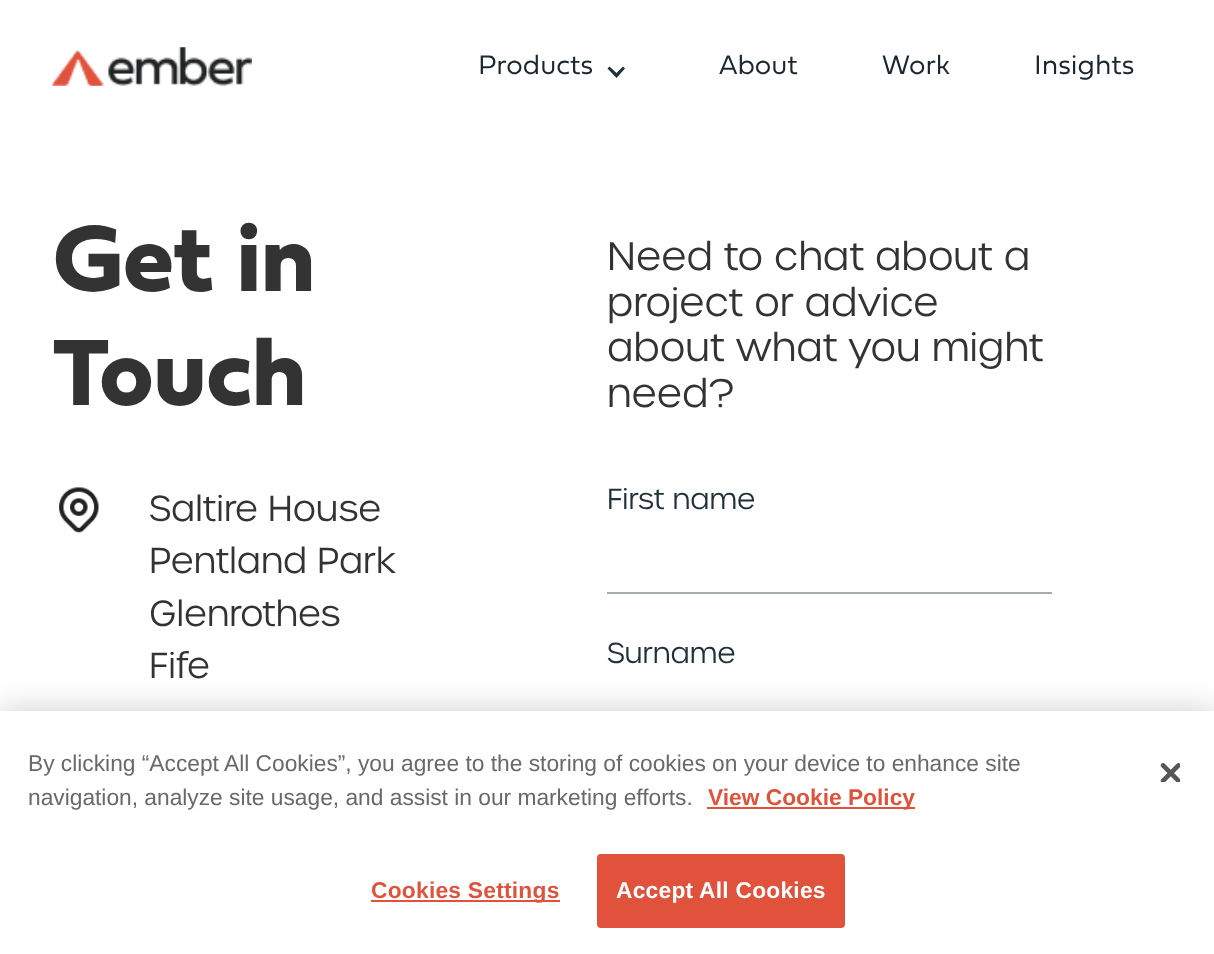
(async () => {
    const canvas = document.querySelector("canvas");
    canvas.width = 1214;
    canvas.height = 954;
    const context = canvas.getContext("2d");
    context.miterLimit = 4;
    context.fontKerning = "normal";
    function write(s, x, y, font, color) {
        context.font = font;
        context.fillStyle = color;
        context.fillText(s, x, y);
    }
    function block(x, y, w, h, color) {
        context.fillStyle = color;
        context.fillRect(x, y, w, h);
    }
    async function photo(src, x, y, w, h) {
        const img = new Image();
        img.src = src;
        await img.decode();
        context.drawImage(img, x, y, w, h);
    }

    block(0, 0, 1214, 954, "rgb(255, 255, 255)");
    await photo("media/1.png", 52, 47, 200, 39);
    write("Products", 478, 74, "300 28px 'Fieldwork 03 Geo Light'", "rgb(27, 39, 47)");
    context.fillStyle = "rgb(33, 49, 57)";
    context.beginPath();
    context.moveTo(623, 66.5);
    context.lineTo(616.5, 73);
    context.lineTo(609.5, 66.5);
    context.lineTo(607.5, 68.5);
    context.lineTo(616.5, 78);
    context.lineTo(625, 68.5);
    context.closePath();
    context.fill();
    write("About", 719, 74, "300 28px 'Fieldwork 03 Geo Light'", "rgb(27, 39, 47)");
    write("Work", 882, 74, "300 28px 'Fieldwork 03 Geo Light'", "rgb(27, 39, 47)");
    write("Insights", 1034, 74, "300 28px 'Fieldwork 03 Geo Light'", "rgb(27, 39, 47)");
    write("Get in", 53, 291, "bold 98px 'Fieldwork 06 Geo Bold'", "rgb(51, 51, 51)");
    write("Touch", 53, 405, "bold 98px 'Fieldwork 06 Geo Bold'", "rgb(51, 51, 51)");
    write("Need to chat about a", 607, 270, "300 38.5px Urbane", "rgb(51, 51, 51)");
    write("project or advice", 607, 316, "300 38.5px Urbane", "rgb(51, 51, 51)");
    write("about what you might", 607, 361, "300 38.5px Urbane", "rgb(51, 51, 51)");
    write("need?", 607, 407, "300 38.5px Urbane", "rgb(51, 51, 51)");
    await photo("media/2.png", 59, 487, 40, 46);
    write("Saltire House", 149, 521, "300 35px Urbane", "rgb(51, 51, 51)");
    write("Pentland Park", 149, 573, "300 35px Urbane", "rgb(51, 51, 51)");
    write("Glenrothes", 149, 626, "300 35px Urbane", "rgb(51, 51, 51)");
    write("Fife", 149, 678, "300 35px Urbane", "rgb(51, 51, 51)");
    write("First name", 607, 509, "300 28px Urbane", "rgb(33, 49, 57)");
    block(607, 592, 445, 2, "rgb(166, 173, 176)");
    write("Surname", 607, 663, "300 28px Urbane", "rgb(33, 49, 57)");
    context.fillStyle = "rgba(0, 0, 0, 0.2)";
    context.filter = "blur(16px)";
    context.beginPath();
    context.rect(0, 711, 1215, 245);
    context.fill();
    context.filter = "none";
    block(0, 711, 1214, 243, "rgb(255, 255, 255)");
    write("By clicking “Accept All Cookies”, you agree to the storing of cookies on your device to enhance site", 28, 771, "22.75px Liberation Sans", "rgb(105, 105, 105)");
    write("navigation, analyze site usage, and assist in our marketing efforts.", 28, 805, "22.75px Liberation Sans", "rgb(105, 105, 105)");
    block(707, 807, 208, 2, "rgb(225, 82, 61)");
    write("View Cookie Policy", 708, 805, "bold 22.75px Liberation Sans", "rgb(225, 82, 61)");
    await photo("media/3.png", 1160, 763, 20, 19);
    block(371, 900, 189, 2, "rgb(225, 82, 61)");
    context.letterSpacing = "0.25px";
    write("Cookies Settings", 371, 898, "bold 22.75px Liberation Sans", "rgb(225, 82, 61)");
    context.beginPath();
    context.roundRect(598, 855, 246, 72, 3);
    context.fill();
    context.strokeStyle = "rgb(225, 82, 61)";
    context.lineWidth = 2;
    context.stroke();
    write("Accept All Cookies", 616, 898, "bold 22.75px Liberation Sans", "rgb(255, 255, 255)");
})();
